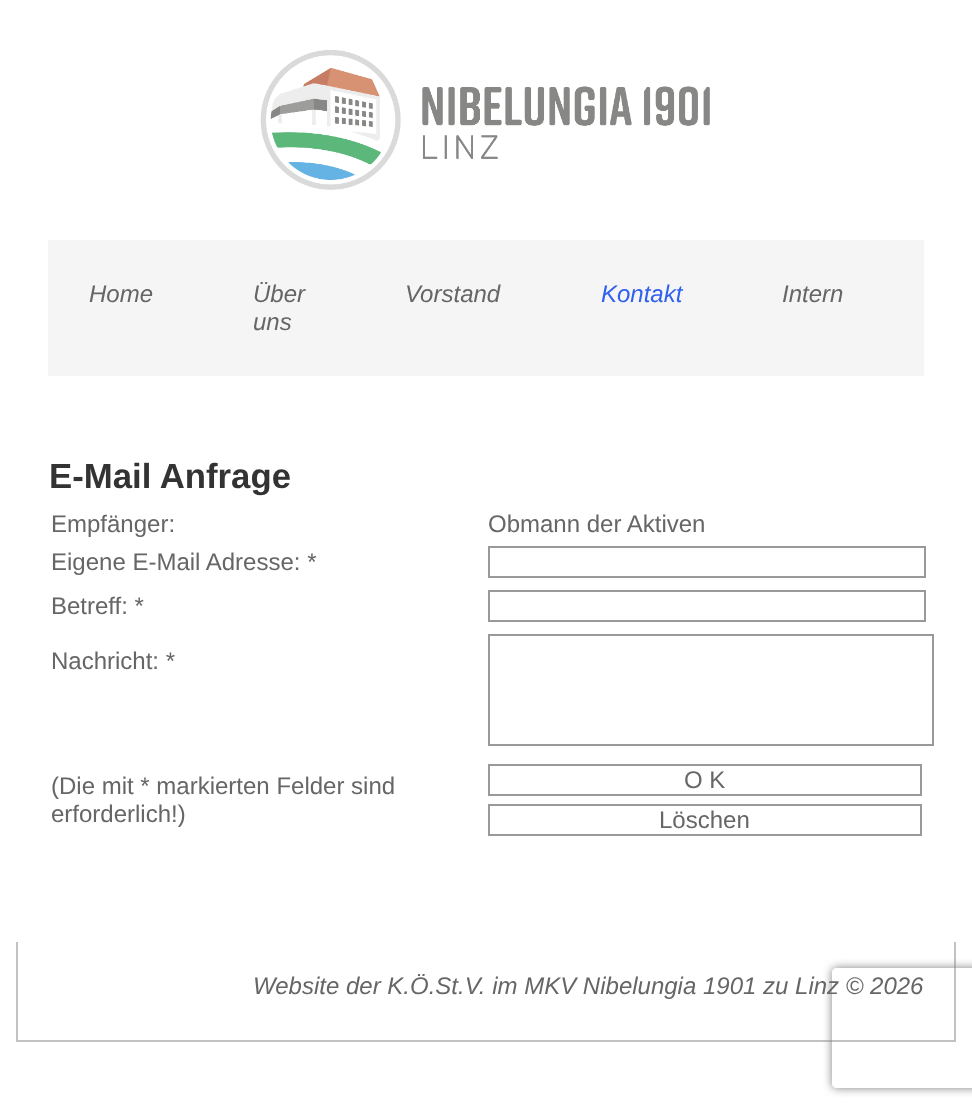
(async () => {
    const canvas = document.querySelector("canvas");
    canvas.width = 972;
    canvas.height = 1116;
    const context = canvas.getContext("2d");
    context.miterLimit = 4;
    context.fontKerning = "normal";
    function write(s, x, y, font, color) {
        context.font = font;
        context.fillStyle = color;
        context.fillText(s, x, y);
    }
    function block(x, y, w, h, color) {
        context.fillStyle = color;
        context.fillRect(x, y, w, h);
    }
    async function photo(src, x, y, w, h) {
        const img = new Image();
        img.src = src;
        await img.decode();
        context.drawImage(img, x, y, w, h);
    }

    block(0, 0, 972, 1116, "rgb(255, 255, 255)");
    await photo("media/1.png", 260, 50, 450, 140);
    block(48, 240, 876, 136, "rgb(245, 245, 245)");
    write("Home", 89, 302, "italic 24px Liberation Sans", "rgb(102, 102, 102)");
    write("Über", 253, 302, "italic 24px Liberation Sans", "rgb(102, 102, 102)");
    write("uns", 253, 330, "italic 24px Liberation Sans", "rgb(102, 102, 102)");
    write("Vorstand", 405, 302, "italic 24px Liberation Sans", "rgb(102, 102, 102)");
    write("Kontakt", 601, 302, "italic 24px Liberation Sans", "rgb(48, 96, 240)");
    write("Intern", 782, 302, "italic 24px Liberation Sans", "rgb(102, 102, 102)");
    write("E-Mail Anfrage", 49, 488, "bold 34.75px Liberation Sans", "rgb(51, 51, 51)");
    write("Empfänger:", 51, 532, "24px Liberation Sans", "rgb(102, 102, 102)");
    write("Obmann der Aktiven", 488, 532, "24px Liberation Sans", "rgb(102, 102, 102)");
    write("Eigene E-Mail Adresse: *", 51, 570, "24px Liberation Sans", "rgb(102, 102, 102)");
    context.strokeStyle = "rgb(153, 153, 153)";
    context.lineWidth = 2;
    context.strokeRect(489, 547, 436, 30);
    write("Betreff: *", 51, 614, "24px Liberation Sans", "rgb(102, 102, 102)");
    context.strokeRect(489, 591, 436, 30);
    write("Nachricht: *", 51, 669, "24px Liberation Sans", "rgb(102, 102, 102)");
    context.strokeRect(489, 635, 444, 110);
    write("(Die mit * markierten Felder sind", 51, 794, "24px Liberation Sans", "rgb(102, 102, 102)");
    write("erforderlich!)", 51, 822, "24px Liberation Sans", "rgb(102, 102, 102)");
    context.strokeRect(489, 765, 432, 30);
    write("O K", 684, 788, "24px Liberation Sans", "rgb(102, 102, 102)");
    context.strokeRect(489, 805, 432, 30);
    write("Löschen", 659, 828, "24px Liberation Sans", "rgb(102, 102, 102)");
    block(954, 942, 2, 100, "rgb(194, 194, 194)");
    block(16, 1040, 940, 2, "rgb(194, 194, 194)");
    context.save();
    context.beginPath();
    context.moveTo(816, 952);
    context.lineTo(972, 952);
    context.lineTo(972, 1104);
    context.lineTo(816, 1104);
    context.closePath();
    context.moveTo(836, 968);
    context.lineTo(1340, 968);
    context.bezierCurveTo(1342, 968, 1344, 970, 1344, 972);
    context.lineTo(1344, 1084);
    context.bezierCurveTo(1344, 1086, 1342, 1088, 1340, 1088);
    context.lineTo(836, 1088);
    context.bezierCurveTo(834, 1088, 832, 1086, 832, 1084);
    context.lineTo(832, 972);
    context.bezierCurveTo(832, 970, 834, 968, 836, 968);
    context.closePath();
    context.clip("evenodd");
    context.fillStyle = "rgb(128, 128, 128)";
    context.filter = "blur(5px)";
    context.beginPath();
    context.roundRect(832, 968, 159, 120, 4);
    context.fill();
    context.filter = "none";
    context.restore();
    block(16, 942, 2, 100, "rgb(194, 194, 194)");
    write("Website der K.Ö.St.V. im MKV Nibelungia 1901 zu Linz © 2026", 253, 994, "italic 24px Liberation Sans", "rgb(102, 102, 102)");
})();
